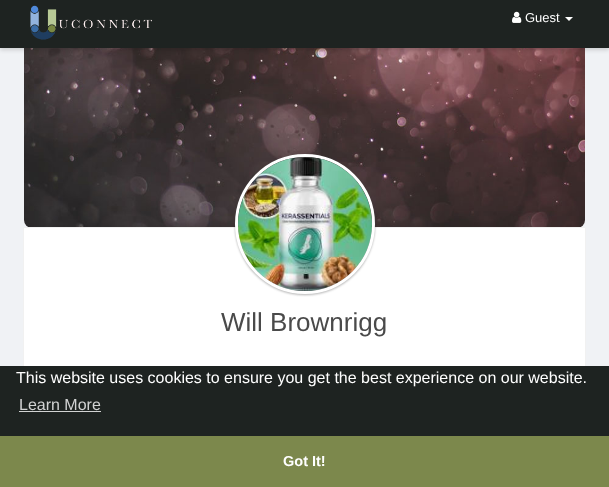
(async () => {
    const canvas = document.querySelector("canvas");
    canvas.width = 609;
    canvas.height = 487;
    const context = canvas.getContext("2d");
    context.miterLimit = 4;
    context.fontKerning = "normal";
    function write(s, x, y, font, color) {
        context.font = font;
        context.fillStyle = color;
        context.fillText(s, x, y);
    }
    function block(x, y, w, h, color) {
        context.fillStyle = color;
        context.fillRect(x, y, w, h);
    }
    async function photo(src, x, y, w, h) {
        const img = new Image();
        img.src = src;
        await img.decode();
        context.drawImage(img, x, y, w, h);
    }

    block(0, 0, 609, 487, "rgb(240, 242, 245)");
    context.fillStyle = "rgb(255, 255, 255)";
    context.beginPath();
    context.roundRect(24, 45, 561, 183, [0, 0, 8, 8]);
    context.fill();
    await photo("media/3.png", 24, 48, 561, 179);
    context.fillStyle = "rgba(0, 0, 0, 0.15)";
    context.filter = "blur(2px)";
    context.beginPath();
    context.rect(0, 2, 609, 48);
    context.fill();
    context.filter = "none";
    block(0, 0, 609, 48, "rgb(30, 35, 33)");
    await photo("media/1.png", 30, 5, 122, 35);
    await photo("media/2.png", 512, 11, 10, 12);
    write("Guest", 525, 22, "13px Liberation Sans", "rgb(255, 255, 255)");
    context.beginPath();
    context.moveTo(565, 17);
    context.lineTo(573, 17);
    context.lineTo(569, 21);
    context.closePath();
    context.fill();
    context.strokeStyle = "rgb(241, 241, 241)";
    context.strokeRect(23.5, 227.5, 562, 181);
    block(24, 228, 561, 138, "rgb(255, 255, 255)");
    context.fillStyle = "rgba(68, 68, 68, 0.42)";
    context.filter = "blur(1px)";
    context.beginPath();
    context.roundRect(235, 155, 140, 140, 70);
    context.fill();
    context.filter = "none";
    context.beginPath();
    context.arc(305, 224, 68.5, 0, Math.PI * 2);
    context.strokeStyle = "rgb(255, 255, 255)";
    context.lineWidth = 3;
    context.stroke();
    await photo("media/4.png", 238, 157, 134, 134);
    write("Will Brownrigg", 221, 331, "26px Liberation Sans", "rgb(74, 74, 74)");
    block(0, 366, 609, 70, "rgb(30, 35, 33)");
    write("This website uses cookies to ensure you get the best experience on our website.", 16, 383, "16px Liberation Sans", "rgb(255, 255, 255)");
    write("Learn More", 19, 410, "16px Liberation Sans", "rgb(210, 211, 211)");
    block(19, 411, 82, 1, "rgb(210, 211, 211)");
    block(0, 436, 609, 51, "rgb(124, 136, 76)");
    write("Got It!", 283, 466, "bold 14.5px Liberation Sans", "rgb(255, 255, 255)");
})();
